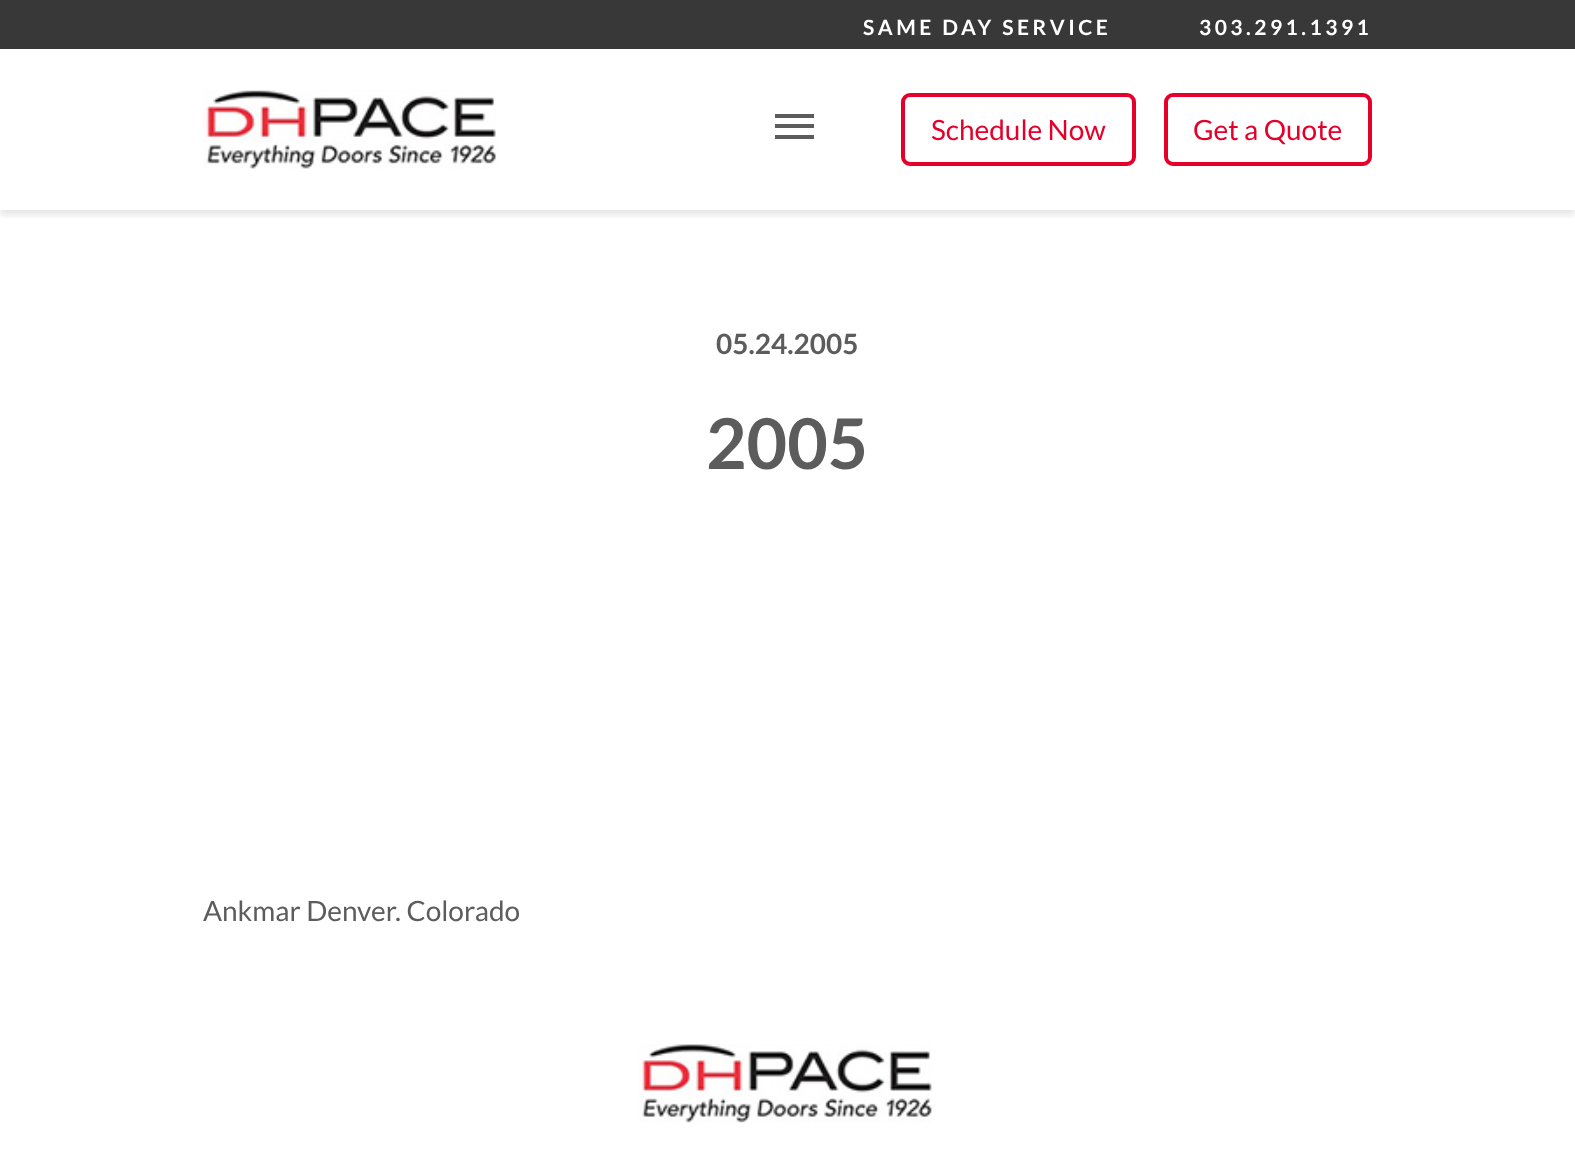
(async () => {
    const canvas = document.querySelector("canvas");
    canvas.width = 1575;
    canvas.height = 1176;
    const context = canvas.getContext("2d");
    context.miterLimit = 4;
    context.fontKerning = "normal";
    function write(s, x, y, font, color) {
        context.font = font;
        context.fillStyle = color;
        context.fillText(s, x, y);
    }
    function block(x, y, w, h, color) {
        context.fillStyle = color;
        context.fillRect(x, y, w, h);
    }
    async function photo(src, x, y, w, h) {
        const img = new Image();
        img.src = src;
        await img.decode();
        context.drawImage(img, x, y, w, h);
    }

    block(0, 0, 1575, 1176, "rgb(255, 255, 255)");
    block(0, 0, 1575, 49, "rgb(56, 56, 56)");
    context.letterSpacing = "3.5px";
    write("SAME DAY SERVICE", 863, 35, "bold 21px Lato", "rgb(255, 255, 255)");
    write("303.291.1391", 1199, 35, "bold 21px Lato", "rgb(255, 255, 255)");
    context.save();
    context.beginPath();
    context.rect(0, 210, 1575, 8);
    context.clip();
    context.fillStyle = "rgba(0, 0, 0, 0.1)";
    context.filter = "blur(3.5px)";
    context.beginPath();
    context.rect(0, 54, 1575, 161);
    context.fill();
    context.filter = "none";
    context.restore();
    await photo("media/1.png", 203, 90, 294, 79);
    block(775, 114, 39, 4, "rgb(92, 92, 92)");
    block(775, 124, 39, 4, "rgb(92, 92, 92)");
    block(775, 135, 39, 4, "rgb(92, 92, 92)");
    context.beginPath();
    context.roundRect(903, 95, 231, 69, 7);
    context.strokeStyle = "rgb(228, 0, 43)";
    context.lineWidth = 4;
    context.stroke();
    context.letterSpacing = "0px";
    write("Schedule Now", 931, 140, "28px Lato", "rgb(228, 0, 43)");
    context.beginPath();
    context.roundRect(1166, 95, 204, 69, 7);
    context.stroke();
    write("Get a Quote", 1193, 140, "28px Lato", "rgb(228, 0, 43)");
    write("05.24.2005", 716, 354, "bold 28px Lato", "rgb(92, 92, 92)");
    write("2005", 706, 469, "bold 70px Lato", "rgb(92, 92, 92)");
    write("Ankmar Denver. Colorado", 203, 921, "28px Lato", "rgb(92, 92, 92)");
    await photo("media/2.png", 639, 1044, 293, 79);
})();
